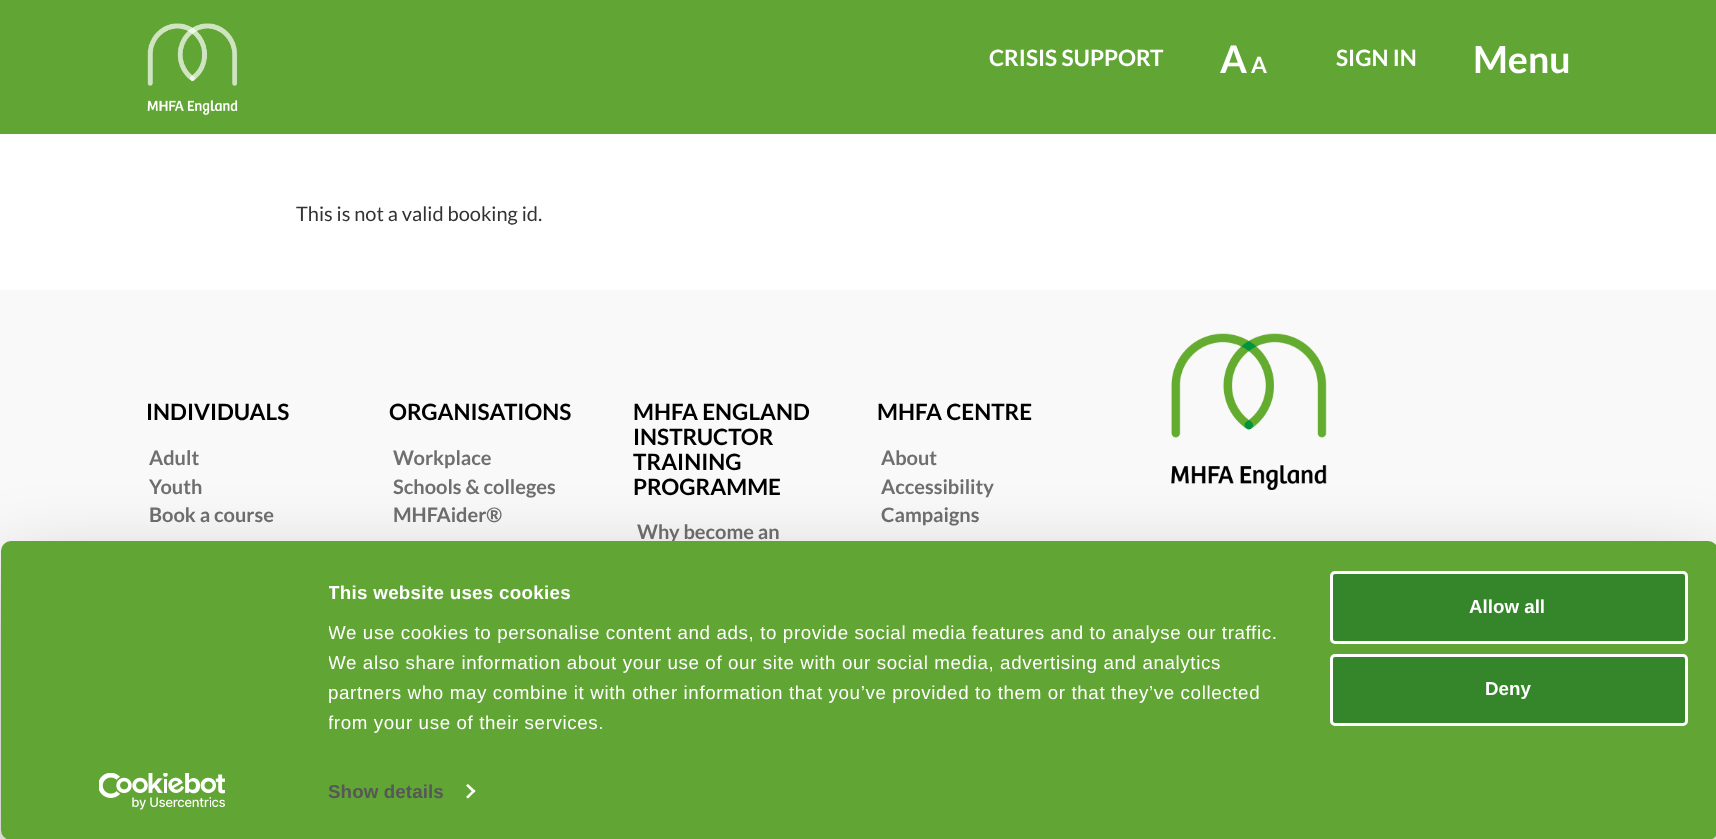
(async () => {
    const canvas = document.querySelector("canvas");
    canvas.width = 1716;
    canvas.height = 839;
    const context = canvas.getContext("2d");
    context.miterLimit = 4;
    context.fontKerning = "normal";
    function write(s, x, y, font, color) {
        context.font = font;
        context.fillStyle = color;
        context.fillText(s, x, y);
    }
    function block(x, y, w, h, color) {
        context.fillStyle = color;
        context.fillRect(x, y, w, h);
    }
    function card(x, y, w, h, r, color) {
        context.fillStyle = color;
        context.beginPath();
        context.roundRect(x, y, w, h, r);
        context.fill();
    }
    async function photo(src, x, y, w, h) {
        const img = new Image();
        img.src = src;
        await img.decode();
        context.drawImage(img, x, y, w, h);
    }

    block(0, 0, 1716, 839, "rgb(255, 255, 255)");
    block(0, 0, 1716, 134, "rgb(97, 165, 52)");
    await photo("media/1.png", 147, 23, 91, 92);
    write("CRISIS SUPPORT", 989, 66, "bold 22.5px Lato", "rgb(255, 255, 255)");
    write("A", 1220, 73, "bold 38px Lato", "rgb(255, 255, 255)");
    write("A", 1251, 73, "bold 22.5px Lato", "rgb(255, 255, 255)");
    write("SIGN IN", 1336, 66, "bold 22.5px Lato", "rgb(255, 255, 255)");
    write("Menu", 1473, 73, "bold 37.5px Lato", "rgb(255, 255, 255)");
    write("This is not a valid booking id.", 296, 221, "20px Lato", "rgb(51, 51, 51)");
    block(0, 290, 1716, 549, "rgb(249, 249, 249)");
    write("INDIVIDUALS", 146, 420, "bold 22.5px Lato", "rgb(0, 0, 0)");
    write("Adult", 149, 465, "bold 20px Lato", "rgb(111, 111, 111)");
    write("Youth", 149, 494, "bold 20px Lato", "rgb(111, 111, 111)");
    write("Book a course", 149, 522, "bold 20px Lato", "rgb(111, 111, 111)");
    write("ORGANISATIONS", 389, 420, "bold 22.5px Lato", "rgb(0, 0, 0)");
    write("Workplace", 393, 465, "bold 20px Lato", "rgb(111, 111, 111)");
    write("Schools & colleges", 393, 494, "bold 20px Lato", "rgb(111, 111, 111)");
    write("MHFAider®", 393, 522, "bold 20px Lato", "rgb(111, 111, 111)");
    write("MHFA ENGLAND", 633, 420, "bold 22.5px Lato", "rgb(0, 0, 0)");
    write("INSTRUCTOR", 633, 445, "bold 22.5px Lato", "rgb(0, 0, 0)");
    write("TRAINING", 633, 470, "bold 22.5px Lato", "rgb(0, 0, 0)");
    write("PROGRAMME", 633, 495, "bold 22.5px Lato", "rgb(0, 0, 0)");
    write("Why become an", 637, 539, "bold 20px Lato", "rgb(111, 111, 111)");
    write("MHFA CENTRE", 877, 420, "bold 22.5px Lato", "rgb(0, 0, 0)");
    write("About", 881, 465, "bold 20px Lato", "rgb(111, 111, 111)");
    write("Accessibility", 881, 494, "bold 20px Lato", "rgb(111, 111, 111)");
    write("Campaigns", 881, 522, "bold 20px Lato", "rgb(111, 111, 111)");
    await photo("media/2.png", 1171, 333, 156, 157);
    context.fillStyle = "rgba(0, 0, 0, 0.3)";
    context.filter = "blur(44px)";
    context.beginPath();
    context.roundRect(1, 579, 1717, 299, 10);
    context.fill();
    context.filter = "none";
    card(1, 541, 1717, 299, 10, "rgb(97, 165, 52)");
    context.save();
    context.beginPath();
    context.rect(329, 579, 994, 159);
    context.clip();
    context.letterSpacing = "0.3px";
    write("This website uses cookies", 328, 599, "bold 18.75px Liberation Sans", "rgb(255, 255, 255)");
    context.letterSpacing = "0.62px";
    write("We use cookies to personalise content and ads, to provide social media features and to analyse our traffic.", 328, 639, "18.75px Liberation Sans", "rgb(255, 255, 255)");
    write("We also share information about your use of our site with our social media, advertising and analytics", 328, 669, "18.75px Liberation Sans", "rgb(255, 255, 255)");
    write("partners who may combine it with other information that you’ve provided to them or that they’ve collected", 328, 699, "18.75px Liberation Sans", "rgb(255, 255, 255)");
    write("from your use of their services.", 328, 729, "18.75px Liberation Sans", "rgb(255, 255, 255)");
    context.restore();
    context.letterSpacing = "0.1px";
    write("Show details", 328, 798, "bold 18.75px Liberation Sans", "rgb(87, 87, 87)");
    context.fillStyle = "rgb(255, 255, 255)";
    context.beginPath();
    context.moveTo(468, 784);
    context.lineTo(475.5, 791);
    context.lineTo(473.5, 793);
    context.lineTo(466, 785.5);
    context.closePath();
    context.fill();
    context.beginPath();
    context.moveTo(473.5, 789.5);
    context.lineTo(475.5, 791);
    context.lineTo(468, 798.5);
    context.lineTo(466, 797);
    context.closePath();
    context.fill();
    context.fillStyle = "rgb(53, 134, 43)";
    context.beginPath();
    context.roundRect(1331.5, 572.5, 355, 70, 3.5);
    context.fill();
    context.strokeStyle = "rgb(255, 255, 255)";
    context.lineWidth = 3;
    context.stroke();
    context.letterSpacing = "0px";
    write("Allow all", 1469, 613, "bold 18.75px Liberation Sans", "rgb(255, 255, 255)");
    context.fillStyle = "rgb(53, 134, 43)";
    context.beginPath();
    context.roundRect(1331.5, 655.5, 355, 69, 3.5);
    context.fill();
    context.stroke();
    write("Deny", 1485, 695, "bold 18.75px Liberation Sans", "rgb(255, 255, 255)");
    await photo("media/3.png", 99, 773, 126, 37);
})();
